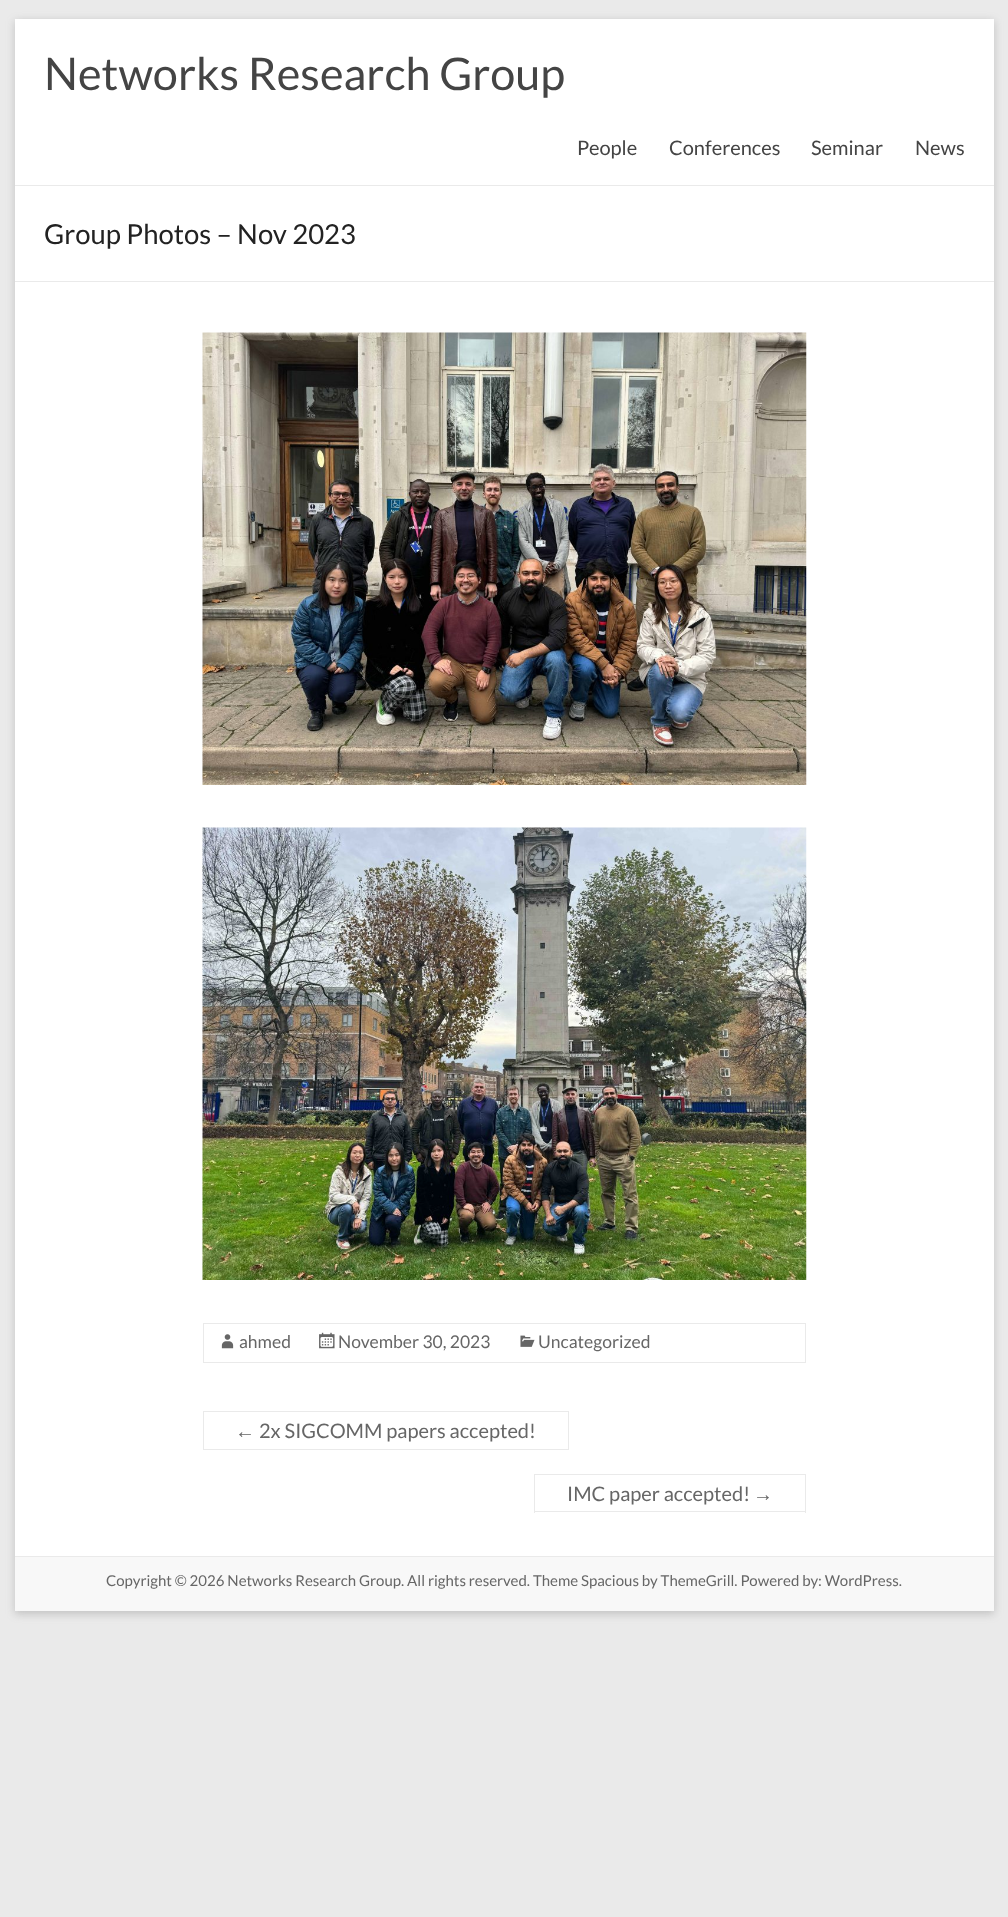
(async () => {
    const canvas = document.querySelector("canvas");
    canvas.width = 1008;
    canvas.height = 1917;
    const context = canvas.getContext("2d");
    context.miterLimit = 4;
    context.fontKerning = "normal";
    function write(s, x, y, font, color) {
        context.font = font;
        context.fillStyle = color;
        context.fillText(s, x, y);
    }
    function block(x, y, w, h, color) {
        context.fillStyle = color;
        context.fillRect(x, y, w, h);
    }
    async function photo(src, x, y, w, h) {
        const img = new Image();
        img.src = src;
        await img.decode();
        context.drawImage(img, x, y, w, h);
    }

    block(0, 0, 1008, 1917, "rgb(234, 234, 234)");
    context.fillStyle = "rgba(100, 100, 100, 0.3)";
    context.filter = "blur(4px)";
    context.beginPath();
    context.rect(15, 21, 979, 1593);
    context.fill();
    context.filter = "none";
    block(15, 19, 979, 1537, "rgb(255, 255, 255)");
    block(15, 185, 979, 1, "rgb(234, 234, 234)");
    write("Networks Research Group", 44, 90, "45px Lato", "rgb(68, 68, 68)");
    write("People", 577, 155, "20px Lato", "rgb(68, 68, 68)");
    write("Conferences", 669, 155, "20px Lato", "rgb(68, 68, 68)");
    write("Seminar", 811, 155, "20px Lato", "rgb(68, 68, 68)");
    write("News", 915, 155, "20px Lato", "rgb(68, 68, 68)");
    block(15, 281, 979, 1, "rgb(234, 234, 234)");
    write("Group Photos – Nov 2023", 44, 244, "27.5px Lato", "rgb(34, 34, 34)");
    await photo("media/1.png", 202, 332, 605, 453);
    await photo("media/2.png", 202, 827, 605, 453);
    context.strokeStyle = "rgb(234, 234, 234)";
    context.strokeRect(203.5, 1323.5, 602, 39);
    await photo("media/3.png", 221, 1334, 13, 15);
    write("ahmed", 239, 1348, "17.5px Lato", "rgb(102, 102, 102)");
    await photo("media/4.png", 319, 1332, 16, 17);
    write("November 30, 2023", 338, 1348, "17.5px Lato", "rgb(102, 102, 102)");
    await photo("media/5.png", 520, 1335, 15, 12);
    write("Uncategorized", 538, 1348, "17.5px Lato", "rgb(102, 102, 102)");
    write("←", 235, 1438, "20px Liberation Sans", "rgb(102, 102, 102)");
    block(203, 1449, 52, 1, "rgb(234, 234, 234)");
    block(203, 1411, 366, 1, "rgb(234, 234, 234)");
    block(203, 1411, 1, 39, "rgb(234, 234, 234)");
    block(568, 1411, 1, 39, "rgb(234, 234, 234)");
    block(255, 1449, 314, 1, "rgb(234, 234, 234)");
    write("2x SIGCOMM papers accepted!", 259, 1438, "20px Lato", "rgb(102, 102, 102)");
    write("IMC paper accepted!", 567, 1501, "20px Lato", "rgb(102, 102, 102)");
    block(534, 1474, 272, 1, "rgb(234, 234, 234)");
    block(534, 1511, 220, 1, "rgb(234, 234, 234)");
    block(534, 1474, 1, 39, "rgb(234, 234, 234)");
    write("→", 753, 1501, "20px Liberation Sans", "rgb(102, 102, 102)");
    block(805, 1474, 1, 39, "rgb(234, 234, 234)");
    block(754, 1511, 52, 1, "rgb(234, 234, 234)");
    block(15, 1557, 979, 54, "rgb(248, 248, 248)");
    block(15, 1556, 979, 1, "rgb(234, 234, 234)");
    write("Copyright © 2026 Networks Research Group. All rights reserved. Theme Spacious by ThemeGrill. Powered by: WordPress.", 106, 1586, "15px Lato", "rgb(102, 102, 102)");
})();
